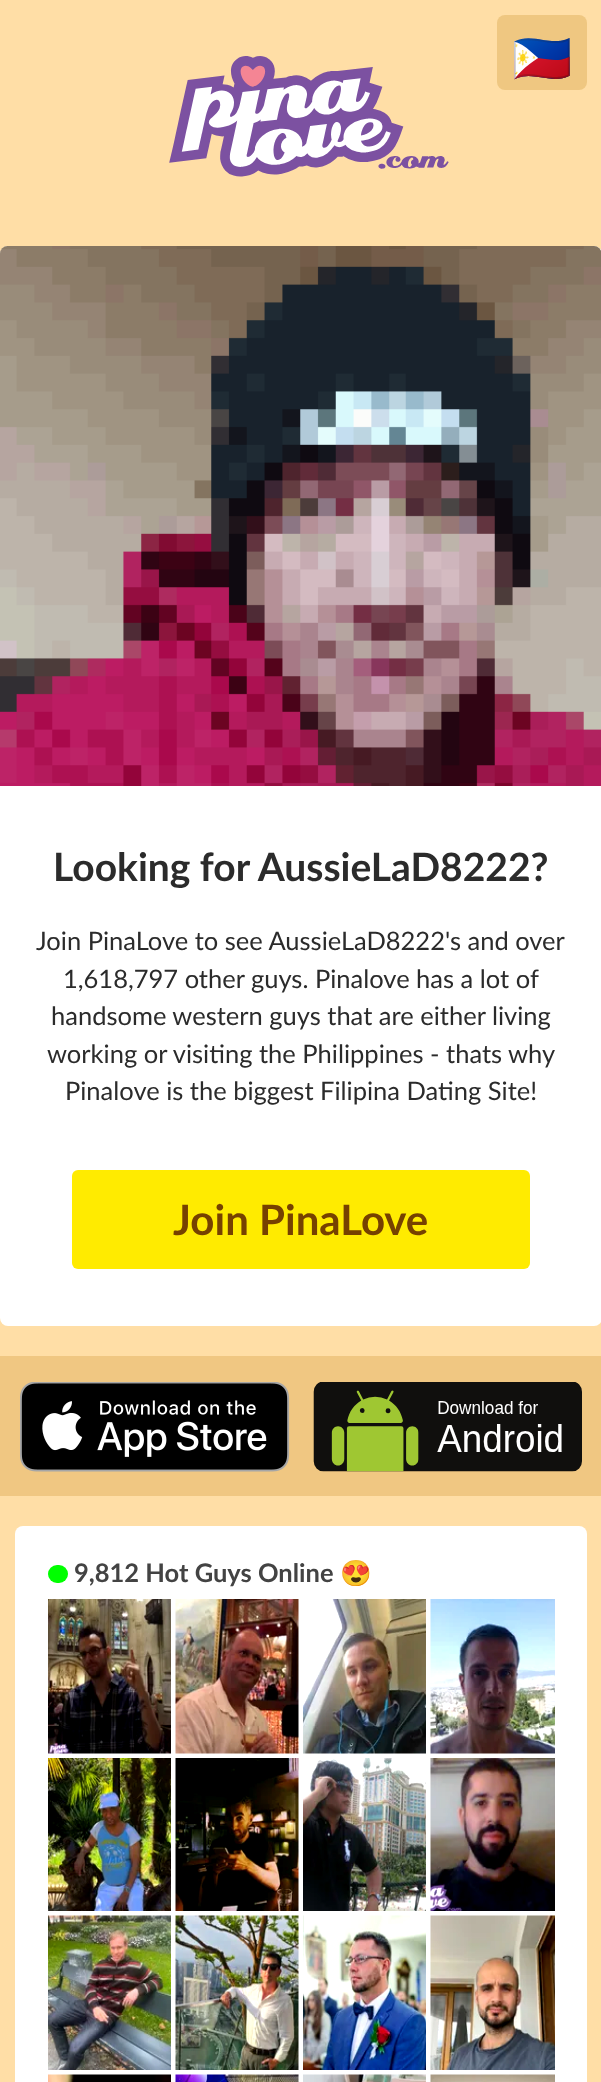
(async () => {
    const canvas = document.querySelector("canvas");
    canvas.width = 601;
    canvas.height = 2082;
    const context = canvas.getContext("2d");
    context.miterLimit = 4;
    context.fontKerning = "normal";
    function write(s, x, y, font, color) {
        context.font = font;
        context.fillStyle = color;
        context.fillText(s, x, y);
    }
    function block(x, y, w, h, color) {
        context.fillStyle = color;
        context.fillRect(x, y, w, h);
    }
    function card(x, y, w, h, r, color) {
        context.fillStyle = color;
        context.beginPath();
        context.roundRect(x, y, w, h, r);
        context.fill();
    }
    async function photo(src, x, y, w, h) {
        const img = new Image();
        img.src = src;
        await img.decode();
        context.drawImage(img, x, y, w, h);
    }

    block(0, 0, 601, 2082, "rgb(255, 222, 166)");
    await photo("media/1.png", 169, 56, 280, 121);
    card(497, 15, 90, 75, 8, "rgb(239, 199, 129)");
    write("🇵🇭", 512, 75, "bold 48px Noto Color Emoji", "rgb(0, 0, 238)");
    card(0, 246, 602, 1080, 8, "rgb(255, 255, 255)");
    await photo("media/2.png", 0, 246, 601, 540);
    write("Looking for AussieLaD8222?", 53, 881, "bold 39px Lato", "rgb(43, 43, 43)");
    write("Join PinaLove to see AussieLaD8222's and over", 36, 950, "25.5px Lato", "rgb(43, 43, 43)");
    write("1,618,797 other guys. Pinalove has a lot of", 63, 988, "25.5px Lato", "rgb(43, 43, 43)");
    write("handsome western guys that are either living", 51, 1025, "25.5px Lato", "rgb(43, 43, 43)");
    write("working or visiting the Philippines - thats why", 47, 1063, "25.5px Lato", "rgb(43, 43, 43)");
    write("Pinalove is the biggest Filipina Dating Site!", 65, 1100, "25.5px Lato", "rgb(43, 43, 43)");
    card(72, 1170, 458, 99, 6, "rgb(255, 235, 0)");
    write("Join PinaLove", 173, 1235, "bold 42px Lato", "rgb(118, 65, 0)");
    block(0, 1356, 601, 140, "rgb(240, 199, 130)");
    await photo("media/3.png", 20, 1382, 270, 90);
    await photo("media/4.png", 313, 1382, 269, 90);
    card(15, 1526, 572, 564, 8, "rgb(255, 255, 255)");
    card(48, 1565, 20, 18, 9, "rgb(0, 255, 0)");
    write("9,812 Hot Guys Online", 74, 1582, "bold 25.5px Lato", "rgb(67, 67, 67)");
    write("😍", 340, 1582, "bold 25.5px Noto Color Emoji", "rgb(67, 67, 67)");
    await photo("media/5.png", 48, 1599, 123, 155);
    await photo("media/6.png", 175, 1599, 124, 155);
    await photo("media/7.png", 303, 1599, 123, 155);
    await photo("media/8.png", 430, 1599, 125, 155);
    await photo("media/9.png", 48, 1758, 123, 153);
    await photo("media/10.png", 175, 1758, 124, 153);
    await photo("media/11.png", 303, 1758, 123, 153);
    await photo("media/12.png", 430, 1758, 125, 153);
    await photo("media/13.png", 48, 1915, 123, 155);
    await photo("media/14.png", 175, 1915, 124, 155);
    await photo("media/15.png", 303, 1915, 123, 155);
    await photo("media/16.png", 430, 1915, 125, 155);
    await photo("media/17.png", 48, 2074, 123, 8);
    await photo("media/18.png", 175, 2074, 124, 8);
    await photo("media/19.png", 303, 2074, 123, 8);
    await photo("media/20.png", 430, 2074, 125, 8);
})();
